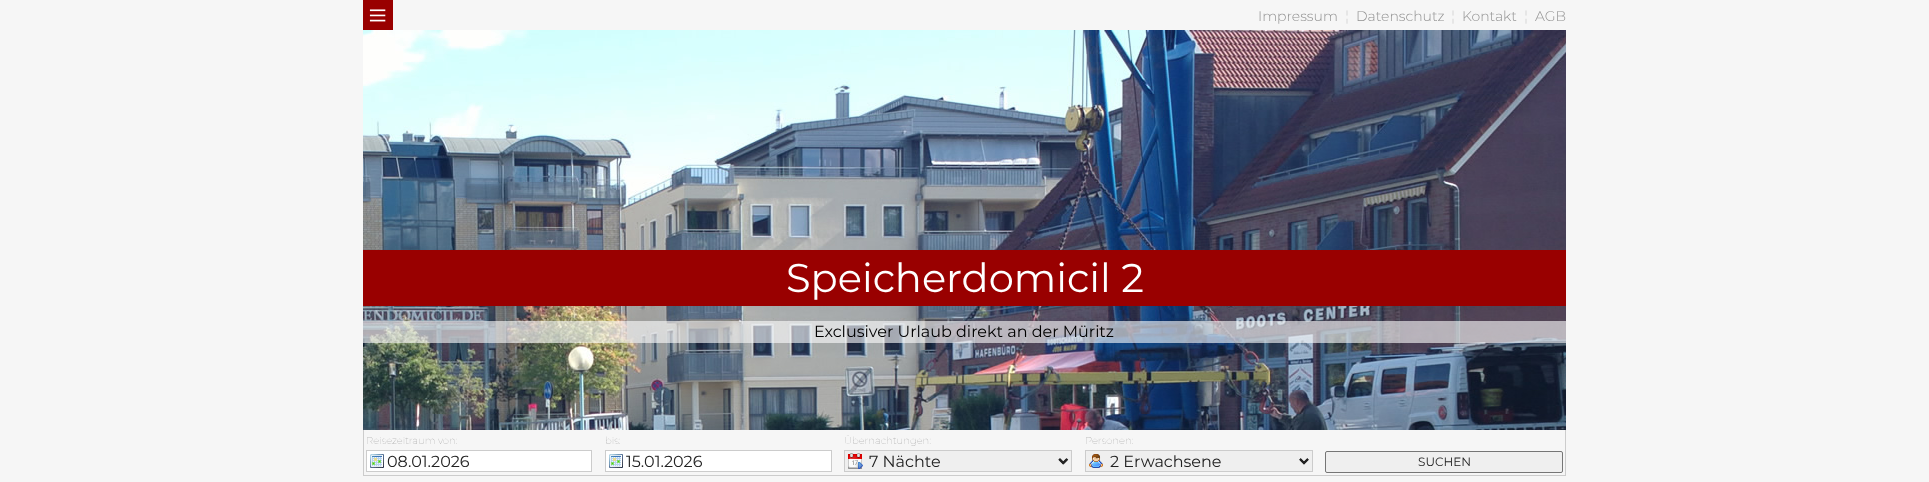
(async () => {
    const canvas = document.querySelector("canvas");
    canvas.width = 1929;
    canvas.height = 482;
    const context = canvas.getContext("2d");
    context.miterLimit = 4;
    context.fontKerning = "normal";
    function write(s, x, y, font, color) {
        context.font = font;
        context.fillStyle = color;
        context.fillText(s, x, y);
    }
    function block(x, y, w, h, color) {
        context.fillStyle = color;
        context.fillRect(x, y, w, h);
    }
    async function photo(src, x, y, w, h) {
        const img = new Image();
        img.src = src;
        await img.decode();
        context.drawImage(img, x, y, w, h);
    }

    block(0, 0, 1929, 482, "rgb(246, 246, 246)");
    block(363, 0, 30, 30, "rgb(153, 0, 0)");
    await photo("media/1.png", 369, 9, 17, 13);
    write("Impressum", 1258, 21, "300 14px Montserrat", "rgb(146, 146, 146)");
    write("¦", 1345, 21, "100 14px Montserrat", "rgb(146, 146, 146)");
    write("Datenschutz", 1356, 21, "300 14px Montserrat", "rgb(146, 146, 146)");
    write("¦", 1451, 21, "100 14px Montserrat", "rgb(146, 146, 146)");
    write("Kontakt", 1462, 21, "300 14px Montserrat", "rgb(146, 146, 146)");
    write("¦", 1524, 21, "100 14px Montserrat", "rgb(146, 146, 146)");
    write("AGB", 1535, 21, "300 14px Montserrat", "rgb(146, 146, 146)");
    await photo("media/2.png", 363, 30, 1203, 400);
    block(363, 250, 1203, 56, "rgb(153, 0, 0)");
    write("Speicherdomicil 2", 786, 292, "40px Montserrat", "rgb(255, 255, 255)");
    block(363, 321, 1203, 22, "rgba(255, 255, 255, 0.6)");
    write("Exclusiver Urlaub direkt an der Müritz", 814, 337, "16px Montserrat", "rgb(0, 0, 0)");
    block(1565, 430, 1, 46, "rgb(204, 204, 204)");
    block(363, 475, 1203, 1, "rgb(204, 204, 204)");
    block(363, 430, 1, 46, "rgb(204, 204, 204)");
    write("Reisezeitraum von:", 366, 444, "100 10px Montserrat", "rgb(146, 146, 146)");
    block(367, 451, 224, 20, "rgb(255, 255, 255)");
    await photo("media/3.png", 370, 454, 14, 14);
    context.strokeStyle = "rgb(204, 204, 204)";
    context.strokeRect(366.5, 450.5, 225, 21);
    write("08.01.2026", 387, 467, "16px Montserrat", "rgb(34, 34, 34)");
    write("bis:", 605, 444, "100 10px Montserrat", "rgb(146, 146, 146)");
    block(606, 451, 225, 20, "rgb(255, 255, 255)");
    await photo("media/3.png", 609, 454, 14, 14);
    context.strokeRect(605.5, 450.5, 226, 21);
    write("15.01.2026", 626, 467, "16px Montserrat", "rgb(34, 34, 34)");
    write("Übernachtungen:", 844, 444, "100 10px Montserrat", "rgb(146, 146, 146)");
    block(845, 451, 226, 20, "rgb(239, 239, 239)");
    await photo("media/4.png", 848, 453, 220, 16);
    context.strokeRect(844.5, 450.5, 227, 21);
    context.beginPath();
    context.moveTo(1059.5, 459);
    context.lineTo(1063.5, 463);
    context.lineTo(1067.5, 459);
    context.strokeStyle = "rgb(34, 34, 34)";
    context.lineWidth = 2;
    context.stroke();
    write("7 Nächte", 869, 467, "16px Montserrat", "rgb(34, 34, 34)");
    write("Personen:", 1085, 444, "100 10px Montserrat", "rgb(146, 146, 146)");
    block(1086, 451, 226, 20, "rgb(239, 239, 239)");
    await photo("media/5.png", 1089, 454, 220, 14);
    context.strokeStyle = "rgb(204, 204, 204)";
    context.lineWidth = 1;
    context.strokeRect(1085.5, 450.5, 227, 21);
    context.beginPath();
    context.moveTo(1300, 459);
    context.lineTo(1304, 463);
    context.lineTo(1308, 459);
    context.strokeStyle = "rgb(34, 34, 34)";
    context.lineWidth = 2;
    context.stroke();
    write("2 Erwachsene", 1110, 467, "16px Montserrat", "rgb(34, 34, 34)");
    context.fillStyle = "rgb(239, 239, 239)";
    context.beginPath();
    context.roundRect(1325.5, 451.5, 237, 21, 1.5);
    context.fill();
    context.strokeStyle = "rgb(118, 118, 118)";
    context.lineWidth = 1;
    context.stroke();
    write("SUCHEN", 1418, 466, "12px Montserrat", "rgb(34, 34, 34)");
})();
